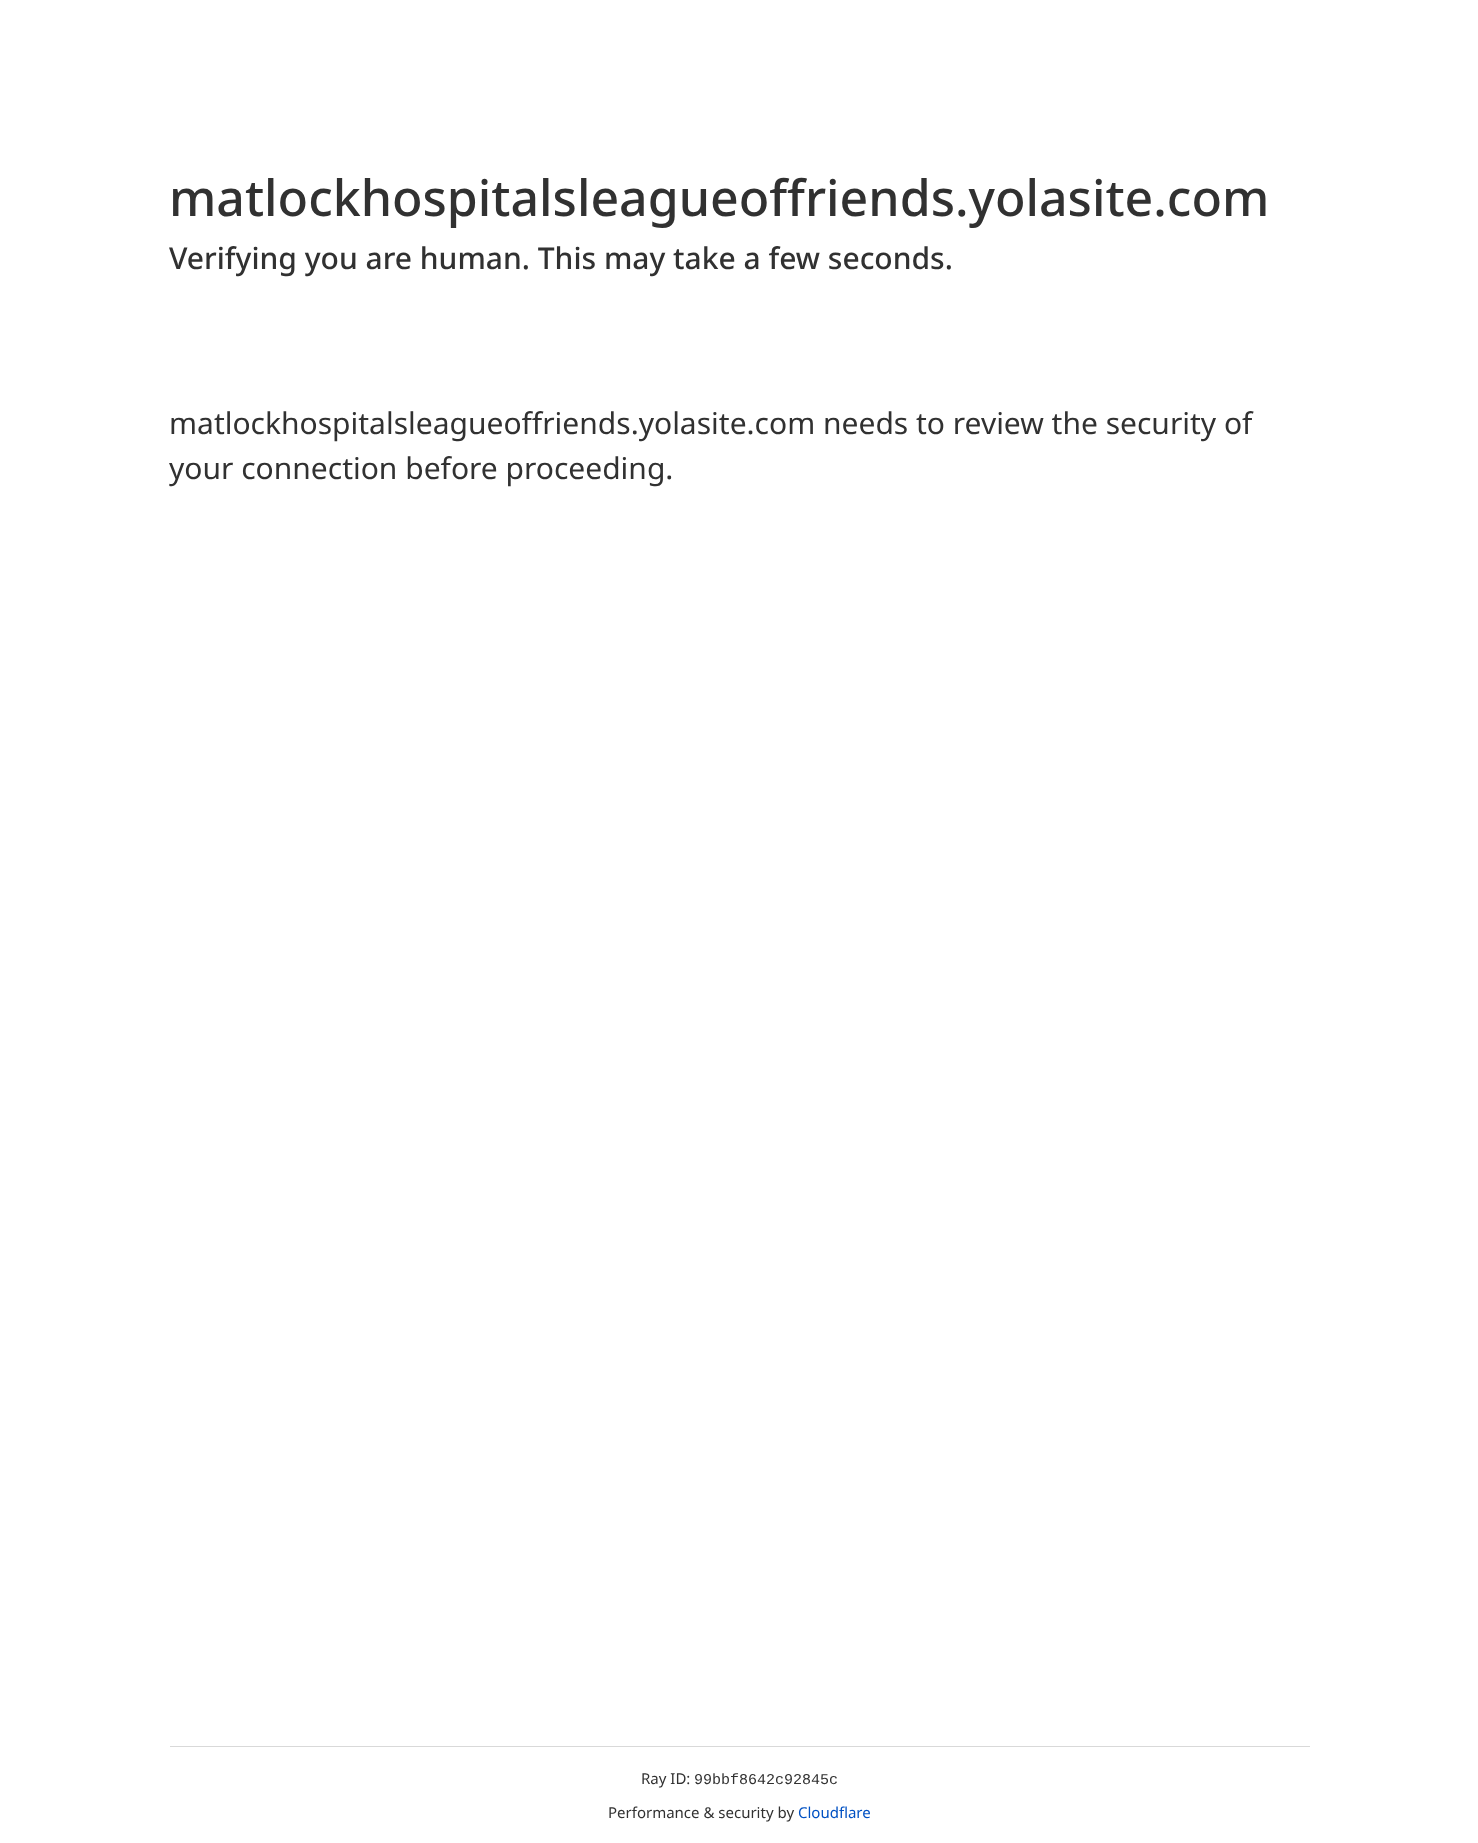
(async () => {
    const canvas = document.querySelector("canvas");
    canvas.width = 1478;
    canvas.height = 1843;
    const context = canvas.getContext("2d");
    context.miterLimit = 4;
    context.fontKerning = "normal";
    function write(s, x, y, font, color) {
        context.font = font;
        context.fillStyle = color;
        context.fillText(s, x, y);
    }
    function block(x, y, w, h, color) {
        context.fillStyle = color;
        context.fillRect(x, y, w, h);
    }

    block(0, 0, 1478, 1843, "rgb(255, 255, 255)");
    write("matlockhospitalsleagueoffriends.yolasite.com", 169, 216, "500 50px Noto Sans", "rgb(49, 49, 49)");
    write("Verifying you are human. This may take a few seconds.", 169, 269, "500 30px Noto Sans", "rgb(49, 49, 49)");
    write("matlockhospitalsleagueoffriends.yolasite.com needs to review the security of", 169, 434, "30px Noto Sans", "rgb(49, 49, 49)");
    write("your connection before proceeding.", 169, 479, "30px Noto Sans", "rgb(49, 49, 49)");
    block(170, 1746, 1140, 1, "rgb(217, 217, 217)");
    write("Ray ID:", 641, 1784, "15px Noto Sans", "rgb(49, 49, 49)");
    write("99bbf8642c92845c", 694, 1784, "15px Liberation Mono", "rgb(49, 49, 49)");
    write("Performance & security by", 608, 1818, "15px Noto Sans", "rgb(49, 49, 49)");
    write("Cloudflare", 798, 1818, "15px Noto Sans", "rgb(0, 81, 195)");
})();
